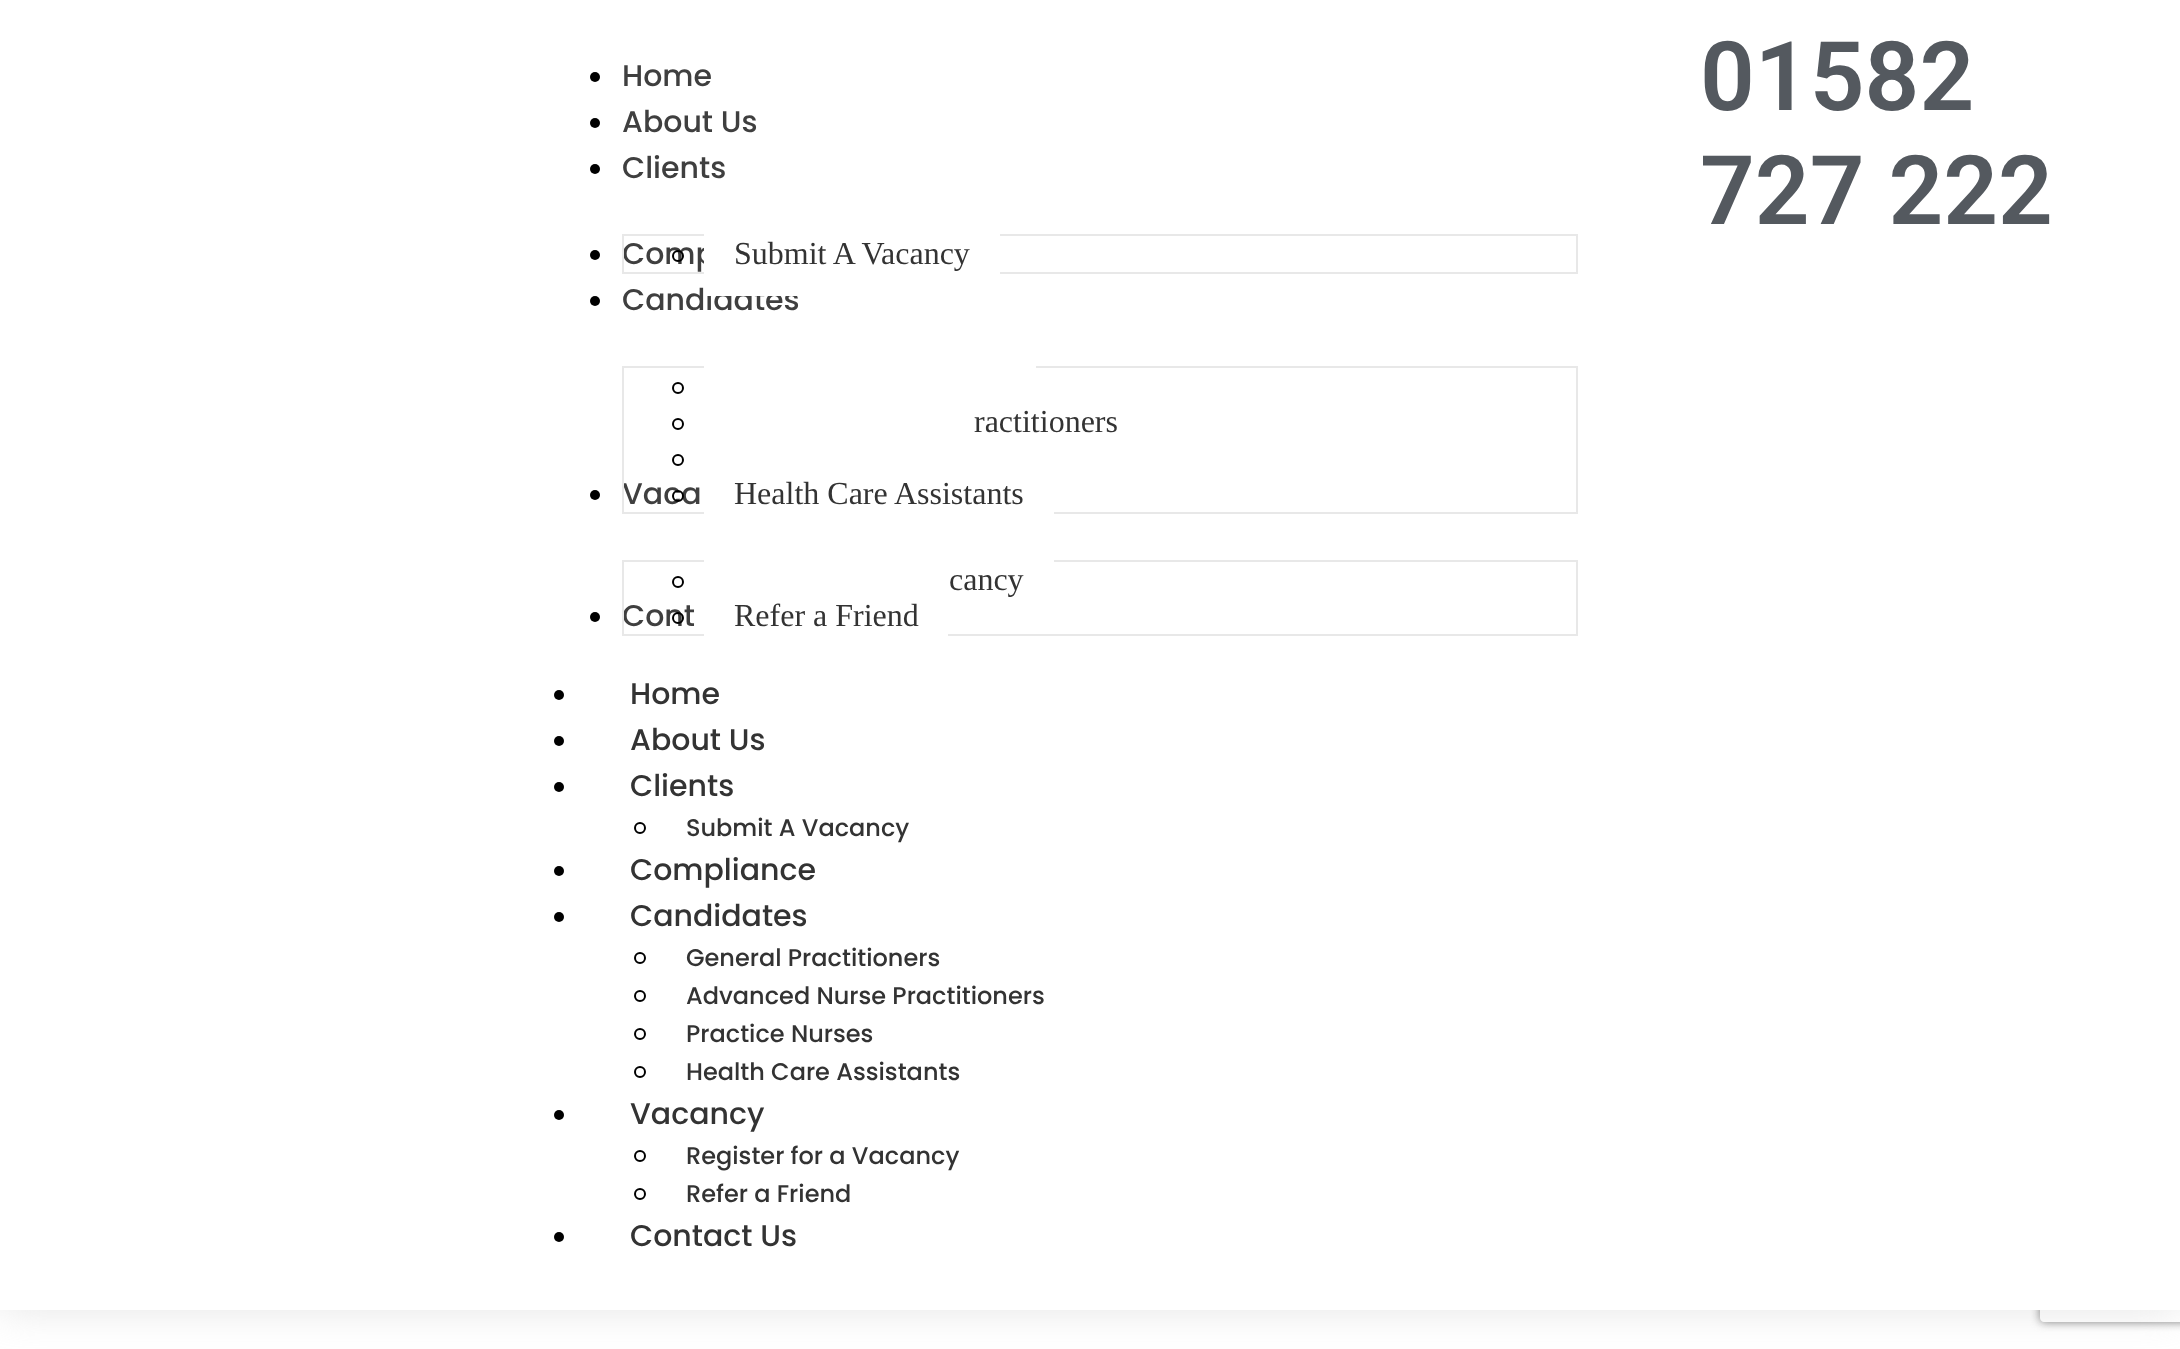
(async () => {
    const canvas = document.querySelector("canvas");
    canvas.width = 2180;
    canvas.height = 1349;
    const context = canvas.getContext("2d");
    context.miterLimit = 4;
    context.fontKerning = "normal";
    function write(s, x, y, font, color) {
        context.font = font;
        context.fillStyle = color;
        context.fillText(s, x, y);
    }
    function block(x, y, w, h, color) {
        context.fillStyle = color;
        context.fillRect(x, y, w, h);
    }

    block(0, 0, 2180, 1349, "rgb(255, 255, 255)");
    context.fillStyle = "rgba(203, 203, 203, 0.5)";
    context.filter = "blur(20px)";
    context.beginPath();
    context.rect(0, 0, 2180, 1310);
    context.fill();
    context.filter = "none";
    context.save();
    context.beginPath();
    context.moveTo(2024, 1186);
    context.lineTo(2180, 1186);
    context.lineTo(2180, 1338);
    context.lineTo(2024, 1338);
    context.closePath();
    context.moveTo(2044, 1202);
    context.lineTo(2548, 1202);
    context.bezierCurveTo(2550, 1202, 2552, 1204, 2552, 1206);
    context.lineTo(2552, 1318);
    context.bezierCurveTo(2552, 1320, 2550, 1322, 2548, 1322);
    context.lineTo(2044, 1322);
    context.bezierCurveTo(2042, 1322, 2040, 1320, 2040, 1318);
    context.lineTo(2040, 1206);
    context.bezierCurveTo(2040, 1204, 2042, 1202, 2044, 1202);
    context.closePath();
    context.clip("evenodd");
    context.fillStyle = "rgb(128, 128, 128)";
    context.filter = "blur(5px)";
    context.beginPath();
    context.roundRect(2040, 1202, 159, 120, 4);
    context.fill();
    context.filter = "none";
    context.restore();
    block(0, 0, 2180, 1310, "rgb(255, 255, 255)");
    context.fillStyle = "rgb(0, 0, 0)";
    context.beginPath();
    context.arc(595, 77, 5, 0, Math.PI * 2);
    context.fill();
    write("Home", 622, 86, "500 30px Poppins", "rgb(63, 63, 63)");
    context.fillStyle = "rgb(0, 0, 0)";
    context.beginPath();
    context.arc(595, 123, 5, 0, Math.PI * 2);
    context.fill();
    write("About Us", 622, 132, "500 30px Poppins", "rgb(63, 63, 63)");
    context.fillStyle = "rgb(0, 0, 0)";
    context.beginPath();
    context.arc(595, 169, 5, 0, Math.PI * 2);
    context.fill();
    write("Clients", 622, 178, "500 30px Poppins", "rgb(63, 63, 63)");
    write("Comp", 622, 264, "500 30px Poppins", "rgb(63, 63, 63)");
    context.strokeStyle = "rgb(232, 232, 232)";
    context.lineWidth = 2;
    context.strokeRect(623, 235, 954, 38);
    context.beginPath();
    context.arc(678, 256, 5, 0, Math.PI * 2);
    context.strokeStyle = "rgb(0, 0, 0)";
    context.stroke();
    write("Candidates", 622, 310, "500 30px Poppins", "rgb(63, 63, 63)");
    block(704, 234, 296, 62, "rgb(255, 255, 255)");
    write("Submit A Vacancy", 734, 264, "32px Liberation Serif", "rgb(51, 51, 51)");
    context.fillStyle = "rgb(0, 0, 0)";
    context.beginPath();
    context.arc(595, 255, 5, 0, Math.PI * 2);
    context.fill();
    context.beginPath();
    context.arc(595, 301, 5, 0, Math.PI * 2);
    context.fill();
    write("Vaca", 622, 504, "500 30px Poppins", "rgb(63, 63, 63)");
    context.strokeStyle = "rgb(232, 232, 232)";
    context.strokeRect(623, 367, 954, 146);
    block(704, 366, 332, 2, "rgb(255, 255, 255)");
    context.beginPath();
    context.arc(678, 388, 5, 0, Math.PI * 2);
    context.strokeStyle = "rgb(0, 0, 0)";
    context.stroke();
    context.beginPath();
    context.arc(678, 424, 5, 0, Math.PI * 2);
    context.stroke();
    write("ractitioners", 974, 432, "32px Liberation Serif", "rgb(51, 51, 51)");
    context.beginPath();
    context.arc(678, 460, 5, 0, Math.PI * 2);
    context.stroke();
    context.beginPath();
    context.arc(678, 496, 5, 0, Math.PI * 2);
    context.stroke();
    write("Health Care Assistants", 734, 504, "32px Liberation Serif", "rgb(51, 51, 51)");
    block(704, 512, 350, 2, "rgb(255, 255, 255)");
    context.fillStyle = "rgb(0, 0, 0)";
    context.beginPath();
    context.arc(595, 495, 5, 0, Math.PI * 2);
    context.fill();
    write("Cont", 622, 626, "500 30px Poppins", "rgb(63, 63, 63)");
    context.strokeStyle = "rgb(232, 232, 232)";
    context.strokeRect(623, 561, 954, 74);
    context.beginPath();
    context.arc(678, 582, 5, 0, Math.PI * 2);
    context.strokeStyle = "rgb(0, 0, 0)";
    context.stroke();
    write("cancy", 949, 590, "32px Liberation Serif", "rgb(51, 51, 51)");
    block(704, 560, 350, 2, "rgb(255, 255, 255)");
    context.beginPath();
    context.arc(678, 618, 5, 0, Math.PI * 2);
    context.stroke();
    write("Refer a Friend", 734, 626, "32px Liberation Serif", "rgb(51, 51, 51)");
    block(704, 634, 244, 2, "rgb(255, 255, 255)");
    context.fillStyle = "rgb(0, 0, 0)";
    context.beginPath();
    context.arc(595, 617, 5, 0, Math.PI * 2);
    context.fill();
    context.beginPath();
    context.arc(559, 695, 5, 0, Math.PI * 2);
    context.fill();
    write("Home", 630, 704, "500 30px Poppins", "rgb(51, 51, 51)");
    context.fillStyle = "rgb(0, 0, 0)";
    context.beginPath();
    context.arc(559, 741, 5, 0, Math.PI * 2);
    context.fill();
    write("About Us", 630, 750, "500 30px Poppins", "rgb(51, 51, 51)");
    context.fillStyle = "rgb(0, 0, 0)";
    context.beginPath();
    context.arc(559, 787, 5, 0, Math.PI * 2);
    context.fill();
    write("Clients", 630, 796, "500 30px Poppins", "rgb(51, 51, 51)");
    context.beginPath();
    context.arc(640, 828, 5, 0, Math.PI * 2);
    context.stroke();
    write("Submit A Vacancy", 686, 836, "500 24px Poppins", "rgb(51, 51, 51)");
    context.fillStyle = "rgb(0, 0, 0)";
    context.beginPath();
    context.arc(559, 871, 5, 0, Math.PI * 2);
    context.fill();
    write("Compliance", 630, 880, "500 30px Poppins", "rgb(51, 51, 51)");
    context.fillStyle = "rgb(0, 0, 0)";
    context.beginPath();
    context.arc(559, 917, 5, 0, Math.PI * 2);
    context.fill();
    write("Candidates", 630, 926, "500 30px Poppins", "rgb(51, 51, 51)");
    context.beginPath();
    context.arc(640, 958, 5, 0, Math.PI * 2);
    context.stroke();
    write("General Practitioners", 686, 966, "500 24px Poppins", "rgb(51, 51, 51)");
    context.beginPath();
    context.arc(640, 996, 5, 0, Math.PI * 2);
    context.stroke();
    write("Advanced Nurse Practitioners", 686, 1004, "500 24px Poppins", "rgb(51, 51, 51)");
    context.beginPath();
    context.arc(640, 1034, 5, 0, Math.PI * 2);
    context.stroke();
    write("Practice Nurses", 686, 1042, "500 24px Poppins", "rgb(51, 51, 51)");
    context.beginPath();
    context.arc(640, 1072, 5, 0, Math.PI * 2);
    context.stroke();
    write("Health Care Assistants", 686, 1080, "500 24px Poppins", "rgb(51, 51, 51)");
    context.fillStyle = "rgb(0, 0, 0)";
    context.beginPath();
    context.arc(559, 1115, 5, 0, Math.PI * 2);
    context.fill();
    write("Vacancy", 630, 1124, "500 30px Poppins", "rgb(51, 51, 51)");
    context.beginPath();
    context.arc(640, 1156, 5, 0, Math.PI * 2);
    context.stroke();
    write("Register for a Vacancy", 686, 1164, "500 24px Poppins", "rgb(51, 51, 51)");
    context.beginPath();
    context.arc(640, 1194, 5, 0, Math.PI * 2);
    context.stroke();
    write("Refer a Friend", 686, 1202, "500 24px Poppins", "rgb(51, 51, 51)");
    context.fillStyle = "rgb(0, 0, 0)";
    context.beginPath();
    context.arc(559, 1237, 5, 0, Math.PI * 2);
    context.fill();
    write("Contact Us", 630, 1246, "500 30px Poppins", "rgb(51, 51, 51)");
    write("01582", 1700, 110, "600 96px Roboto", "rgb(84, 89, 95)");
    write("727 222", 1700, 224, "600 96px Roboto", "rgb(84, 89, 95)");
})();
